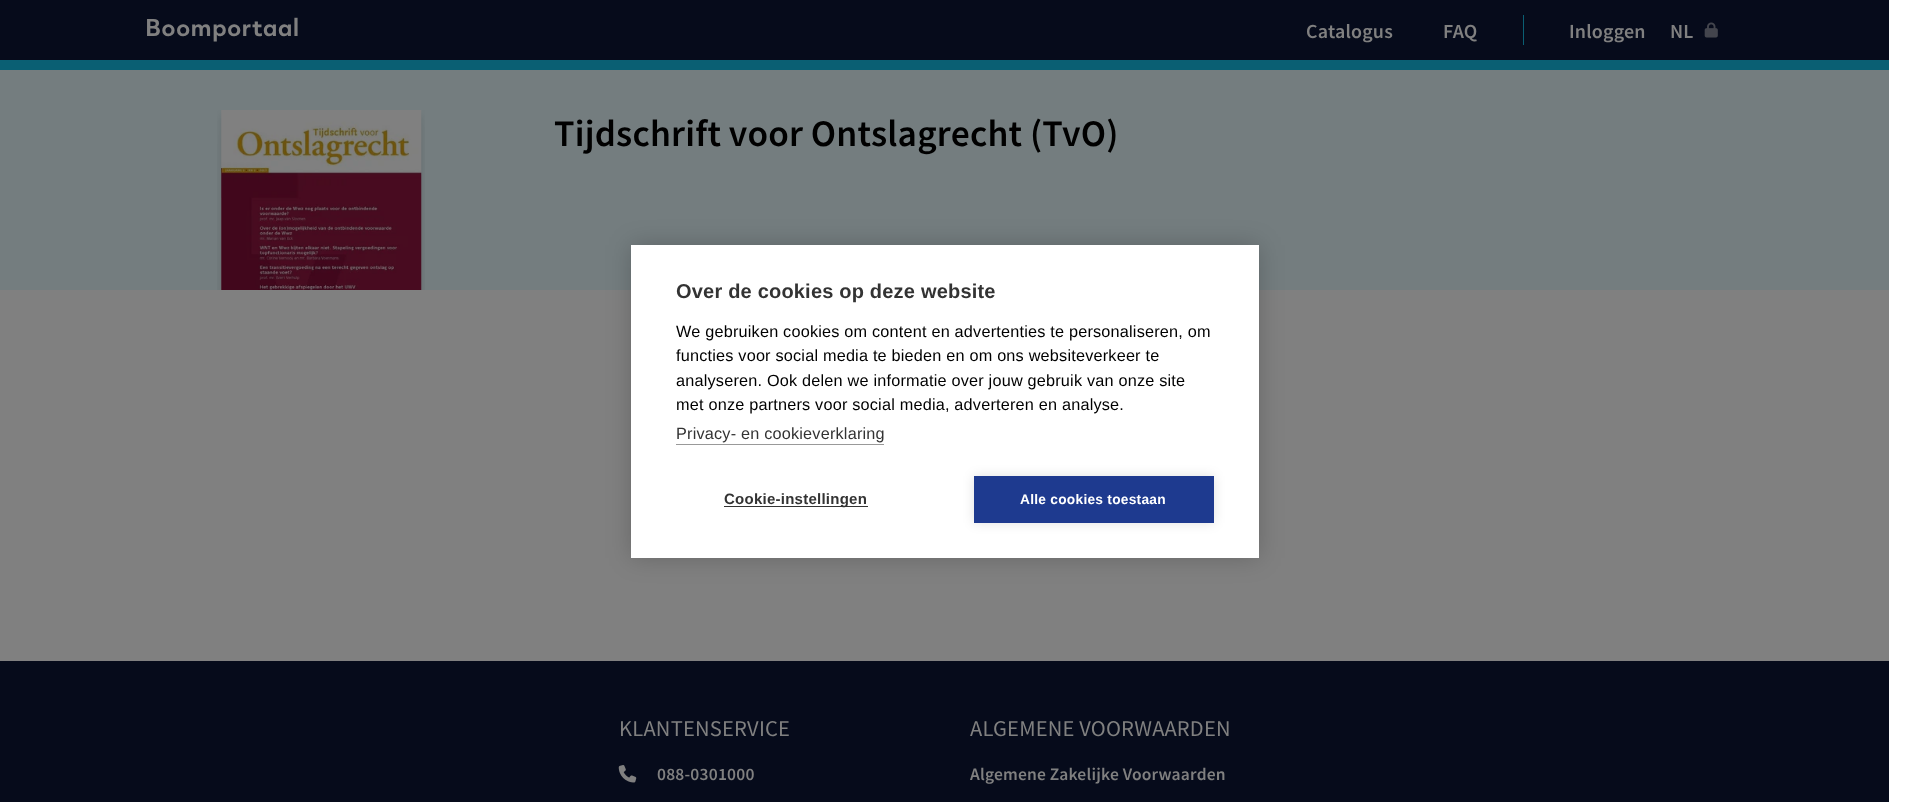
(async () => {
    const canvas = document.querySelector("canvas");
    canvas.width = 1907;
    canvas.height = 802;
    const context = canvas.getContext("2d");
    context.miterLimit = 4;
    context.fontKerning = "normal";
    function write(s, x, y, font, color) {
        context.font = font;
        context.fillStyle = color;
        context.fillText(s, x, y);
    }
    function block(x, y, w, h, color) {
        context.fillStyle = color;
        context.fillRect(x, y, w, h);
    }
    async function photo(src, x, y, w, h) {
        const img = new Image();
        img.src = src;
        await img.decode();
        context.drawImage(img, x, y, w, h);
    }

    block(0, 0, 1907, 802, "rgb(255, 255, 255)");
    block(0, 290, 1889, 371, "rgb(128, 128, 128)");
    block(0, 0, 1889, 60, "rgb(6, 11, 27)");
    context.letterSpacing = "0.2px";
    write("Boomportaal", 145, 36, "bold 22.5px 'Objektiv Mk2'", "rgb(128, 128, 128)");
    write("Catalogus", 1306, 38, "600 20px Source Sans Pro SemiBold", "rgb(128, 128, 128)");
    write("FAQ", 1443, 38, "600 20px Source Sans Pro SemiBold", "rgb(128, 128, 128)");
    block(1523, 15, 1, 30, "rgb(10, 95, 115)");
    write("Inloggen", 1569, 38, "600 20px Source Sans Pro SemiBold", "rgb(128, 128, 128)");
    write("NL", 1670, 38, "600 20px Source Sans Pro SemiBold", "rgb(128, 128, 128)");
    await photo("media/1.png", 1704, 22, 14, 16);
    block(0, 60, 1889, 10, "rgb(10, 95, 115)");
    block(0, 70, 1889, 220, "rgb(116, 125, 127)");
    await photo("media/2.png", 217, 110, 208, 180);
    write("Tijdschrift voor Ontslagrecht (TvO)", 554, 146, "600 37.5px Source Sans Pro SemiBold", "rgb(0, 0, 0)");
    block(0, 661, 1889, 141, "rgb(6, 11, 27)");
    write("KLANTENSERVICE", 619, 736, "22.5px Source Sans Pro", "rgb(128, 128, 128)");
    await photo("media/3.png", 618, 765, 19, 18);
    write("088-0301000", 657, 780, "600 17.5px Source Sans Pro SemiBold", "rgb(128, 128, 128)");
    write("ALGEMENE VOORWAARDEN", 970, 736, "22.5px Source Sans Pro", "rgb(128, 128, 128)");
    write("Algemene Zakelijke Voorwaarden", 970, 780, "600 17.5px Source Sans Pro SemiBold", "rgb(128, 128, 128)");
    context.fillStyle = "rgba(0, 0, 0, 0.2)";
    context.filter = "blur(12.5px)";
    context.beginPath();
    context.rect(631, 245, 628, 313);
    context.fill();
    context.filter = "none";
    block(631, 245, 628, 313, "rgb(255, 255, 255)");
    write("Over de cookies op deze website", 676, 298, "bold 20px Liberation Sans", "rgb(51, 51, 51)");
    write("We gebruiken cookies om content en advertenties te personaliseren, om", 676, 337, "16.25px Liberation Sans", "rgb(0, 0, 0)");
    write("functies voor social media te bieden en om ons websiteverkeer te", 676, 361, "16.25px Liberation Sans", "rgb(0, 0, 0)");
    write("analyseren. Ook delen we informatie over jouw gebruik van onze site", 676, 386, "16.25px Liberation Sans", "rgb(0, 0, 0)");
    write("met onze partners voor social media, adverteren en analyse.", 676, 410, "16.25px Liberation Sans", "rgb(0, 0, 0)");
    write("Privacy- en cookieverklaring", 676, 439, "16.25px Liberation Sans", "rgb(51, 51, 51)");
    block(676, 444, 208, 1, "rgb(153, 153, 153)");
    block(724, 506, 144, 1, "rgb(51, 51, 51)");
    context.letterSpacing = "0.25px";
    write("Cookie-instellingen", 724, 504, "bold 15px Liberation Sans", "rgb(51, 51, 51)");
    context.fillStyle = "rgba(0, 0, 0, 0.12)";
    context.filter = "blur(6px)";
    context.beginPath();
    context.rect(974, 476, 240, 47);
    context.fill();
    context.filter = "none";
    block(974, 476, 240, 47, "rgb(30, 58, 143)");
    write("Alle cookies toestaan", 1020, 504, "bold 13.75px Liberation Sans", "rgb(255, 255, 255)");
})();
